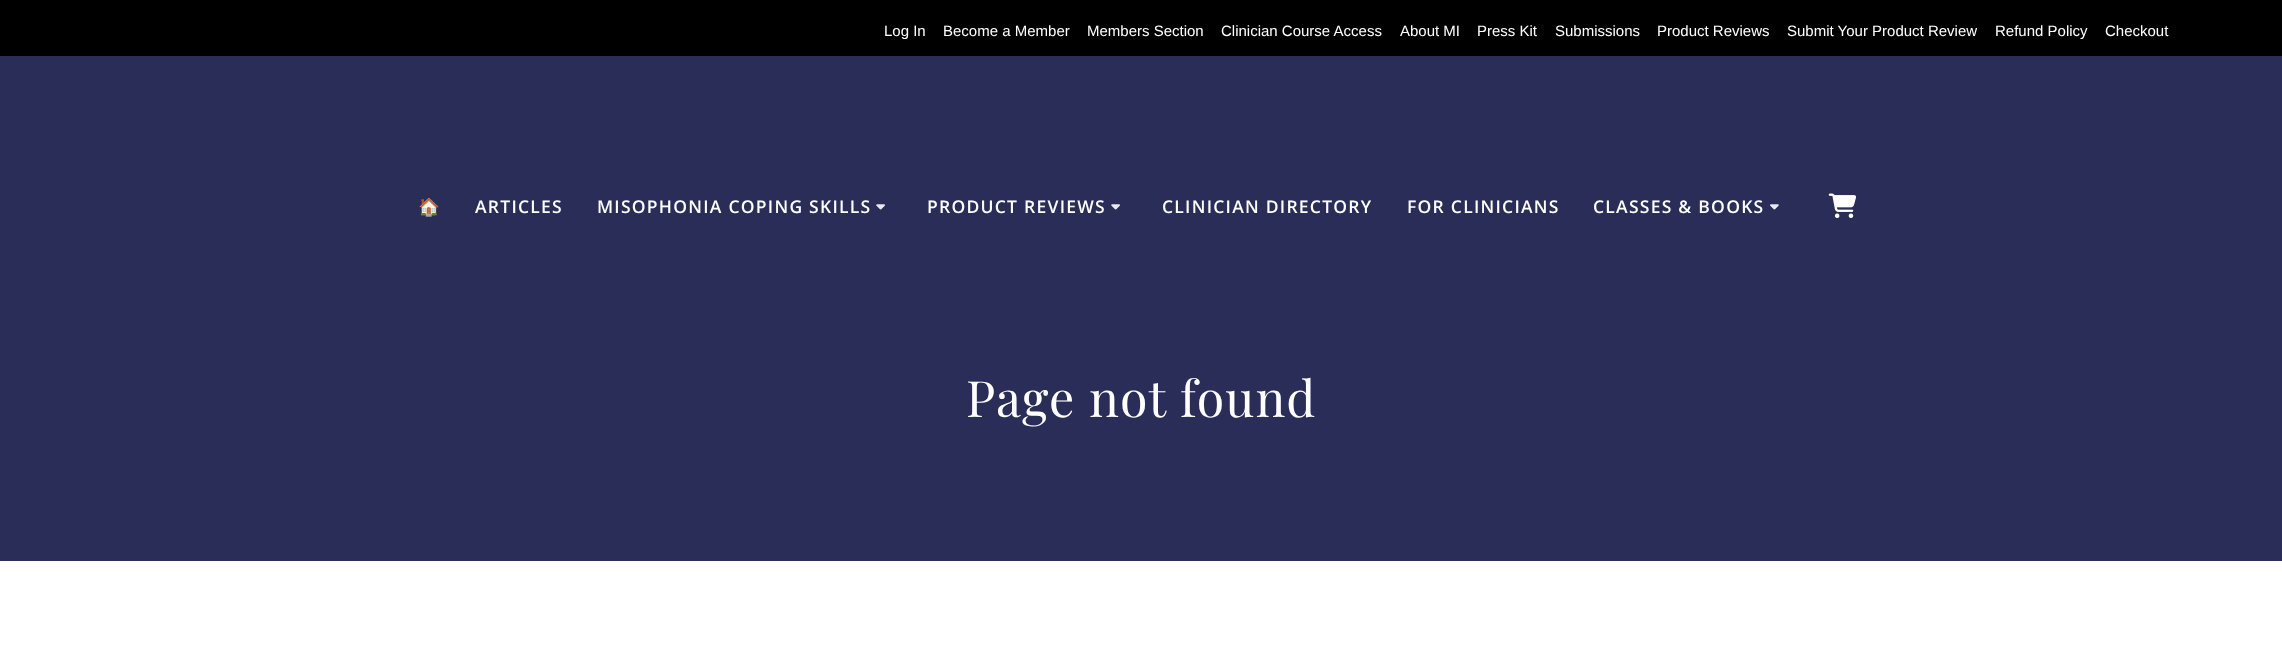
(async () => {
    const canvas = document.querySelector("canvas");
    canvas.width = 2282;
    canvas.height = 659;
    const context = canvas.getContext("2d");
    context.miterLimit = 4;
    context.fontKerning = "normal";
    function write(s, x, y, font, color) {
        context.font = font;
        context.fillStyle = color;
        context.fillText(s, x, y);
    }
    function block(x, y, w, h, color) {
        context.fillStyle = color;
        context.fillRect(x, y, w, h);
    }
    async function photo(src, x, y, w, h) {
        const img = new Image();
        img.src = src;
        await img.decode();
        context.drawImage(img, x, y, w, h);
    }

    block(0, 0, 2282, 659, "rgb(255, 255, 255)");
    block(0, 0, 2282, 56, "rgb(0, 0, 0)");
    write("Log In", 884, 36, "15px Liberation Sans", "rgb(255, 255, 255)");
    write("Become a Member", 943, 36, "15px Liberation Sans", "rgb(255, 255, 255)");
    write("Members Section", 1087, 36, "15px Liberation Sans", "rgb(255, 255, 255)");
    write("Clinician Course Access", 1221, 36, "15px Liberation Sans", "rgb(255, 255, 255)");
    write("About MI", 1400, 36, "15px Liberation Sans", "rgb(255, 255, 255)");
    write("Press Kit", 1477, 36, "15px Liberation Sans", "rgb(255, 255, 255)");
    write("Submissions", 1555, 36, "15px Liberation Sans", "rgb(255, 255, 255)");
    write("Product Reviews", 1657, 36, "15px Liberation Sans", "rgb(255, 255, 255)");
    write("Submit Your Product Review", 1787, 36, "15px Liberation Sans", "rgb(255, 255, 255)");
    write("Refund Policy", 1995, 36, "15px Liberation Sans", "rgb(255, 255, 255)");
    write("Checkout", 2105, 36, "15px Liberation Sans", "rgb(255, 255, 255)");
    block(0, 56, 2282, 505, "rgb(42, 45, 88)");
    context.letterSpacing = "1.25px";
    write("🏠", 418, 213, "bold 17.5px Noto Color Emoji", "rgb(255, 255, 255)");
    write("ARTICLES", 475, 213, "600 17.5px Open Sans", "rgb(255, 255, 255)");
    write("MISOPHONIA COPING SKILLS", 597, 213, "600 17.5px Open Sans", "rgb(255, 255, 255)");
    await photo("media/1.png", 876, 204, 9, 6);
    write("PRODUCT REVIEWS", 927, 213, "600 17.5px Open Sans", "rgb(255, 255, 255)");
    await photo("media/1.png", 1111, 204, 9, 6);
    write("CLINICIAN DIRECTORY", 1162, 213, "600 17.5px Open Sans", "rgb(255, 255, 255)");
    write("FOR CLINICIANS", 1407, 213, "600 17.5px Open Sans", "rgb(255, 255, 255)");
    write("CLASSES & BOOKS", 1593, 213, "600 17.5px Open Sans", "rgb(255, 255, 255)");
    await photo("media/2.png", 1770, 204, 9, 6);
    await photo("media/3.png", 1828, 193, 28, 25);
    context.letterSpacing = "1.1px";
    write("Page not found", 966, 417, "50px Playfair Display", "rgb(255, 255, 255)");
})();
